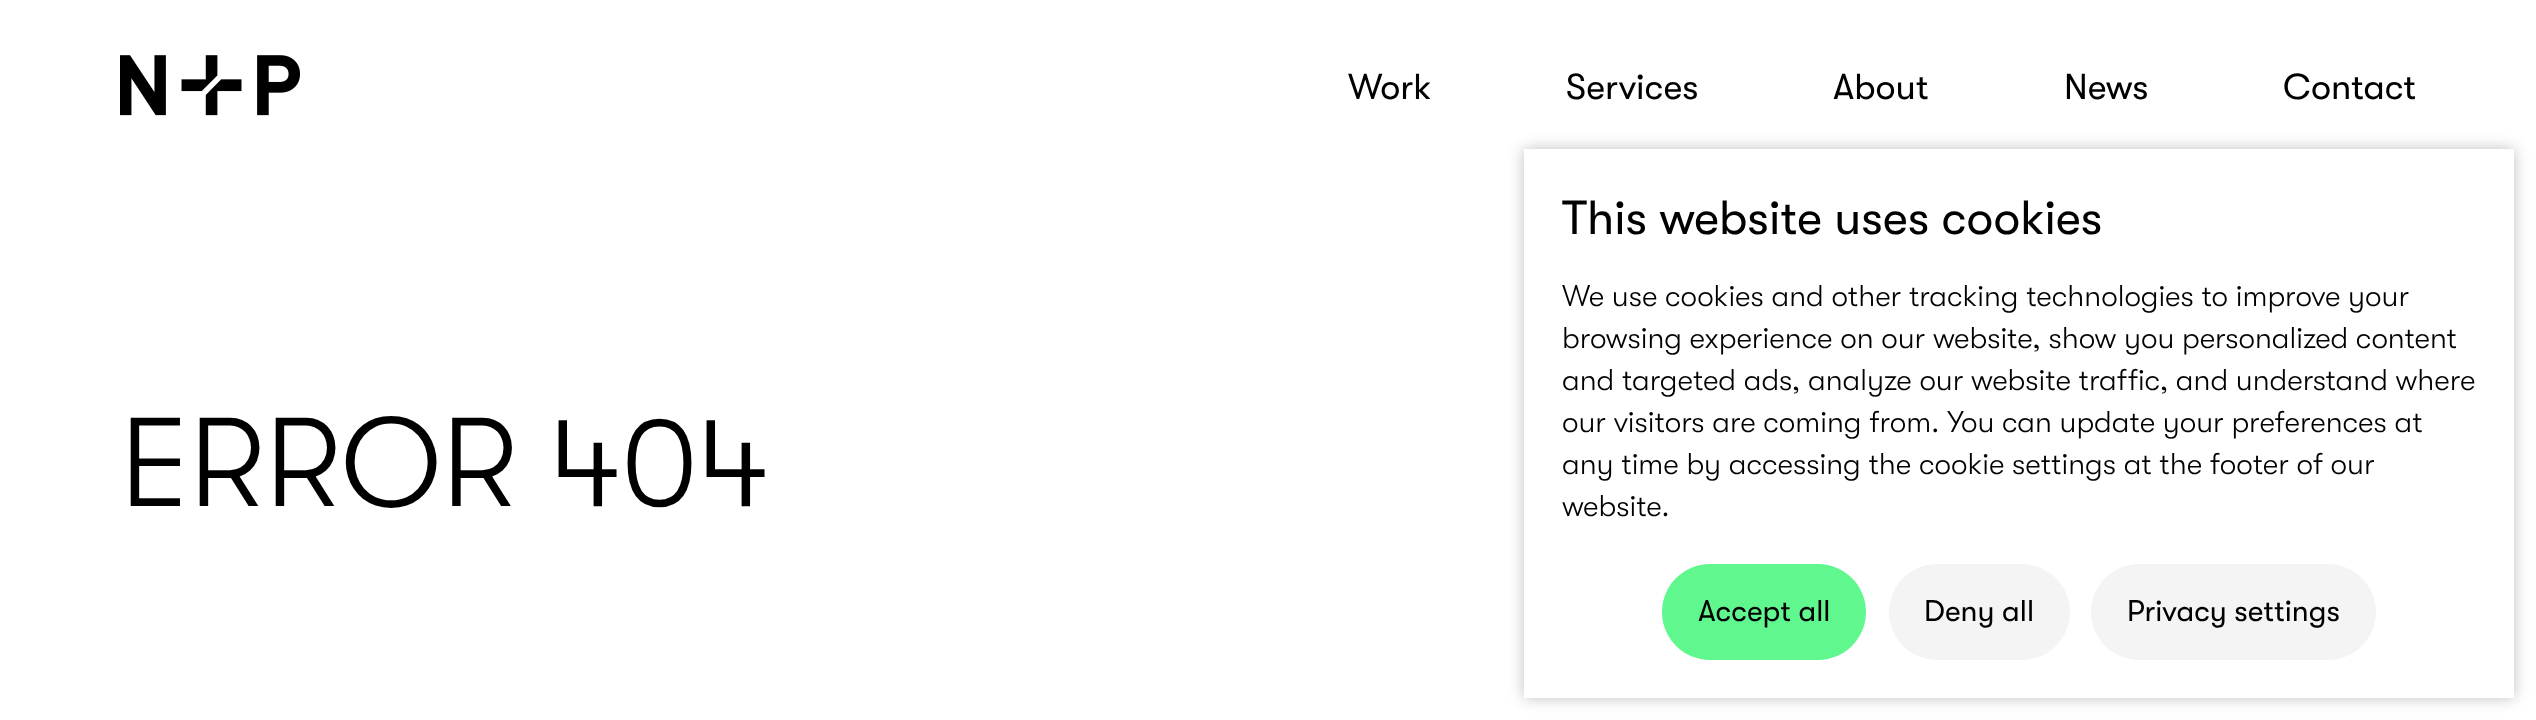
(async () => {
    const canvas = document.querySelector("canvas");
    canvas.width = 2536;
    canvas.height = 720;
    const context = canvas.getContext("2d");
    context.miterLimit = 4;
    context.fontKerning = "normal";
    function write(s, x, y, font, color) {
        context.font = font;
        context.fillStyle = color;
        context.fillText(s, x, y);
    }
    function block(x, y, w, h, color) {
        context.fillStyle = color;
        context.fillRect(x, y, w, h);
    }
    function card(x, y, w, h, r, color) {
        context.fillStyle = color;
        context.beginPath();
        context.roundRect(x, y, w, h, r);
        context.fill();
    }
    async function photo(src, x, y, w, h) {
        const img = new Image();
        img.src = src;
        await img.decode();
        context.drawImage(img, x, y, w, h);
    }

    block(0, 0, 2536, 720, "rgb(255, 255, 255)");
    await photo("media/1.png", 120, 55, 180, 61);
    write("Work", 1348, 99, "36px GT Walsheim", "rgb(0, 0, 0)");
    write("Services", 1566, 99, "36px GT Walsheim", "rgb(0, 0, 0)");
    write("About", 1833, 99, "36px GT Walsheim", "rgb(0, 0, 0)");
    write("News", 2064, 99, "36px GT Walsheim", "rgb(0, 0, 0)");
    write("Contact", 2283, 99, "36px GT Walsheim", "rgb(0, 0, 0)");
    write("ERROR 404", 120, 506, "300 126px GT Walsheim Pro", "rgb(0, 0, 0)");
    context.fillStyle = "rgba(0, 0, 0, 0.25)";
    context.filter = "blur(7.5px)";
    context.beginPath();
    context.rect(1524, 149, 990, 549);
    context.fill();
    context.filter = "none";
    block(1524, 149, 990, 549, "rgb(255, 255, 255)");
    write("This website uses cookies", 1562, 234, "48px GT Walsheim", "rgb(0, 0, 0)");
    write("We use cookies and other tracking technologies to improve your", 1562, 306, "300 30px GT Walsheim Pro", "rgb(0, 0, 0)");
    write("browsing experience on our website, show you personalized content", 1562, 348, "300 30px GT Walsheim Pro", "rgb(0, 0, 0)");
    write("and targeted ads, analyze our website traffic, and understand where", 1562, 390, "300 30px GT Walsheim Pro", "rgb(0, 0, 0)");
    write("our visitors are coming from. You can update your preferences at", 1562, 432, "300 30px GT Walsheim Pro", "rgb(0, 0, 0)");
    write("any time by accessing the cookie settings at the footer of our", 1562, 474, "300 30px GT Walsheim Pro", "rgb(0, 0, 0)");
    write("website.", 1562, 516, "300 30px GT Walsheim Pro", "rgb(0, 0, 0)");
    card(1662, 564, 204, 96, 48, "rgb(95, 247, 142)");
    write("Accept all", 1698, 621, "30px GT Walsheim", "rgb(0, 0, 0)");
    card(1889, 564, 181, 96, 48, "rgb(244, 244, 244)");
    write("Deny all", 1924, 621, "30px GT Walsheim", "rgb(0, 0, 0)");
    card(2091, 564, 285, 96, 48, "rgb(244, 244, 244)");
    write("Privacy settings", 2127, 621, "30px GT Walsheim", "rgb(0, 0, 0)");
})();
